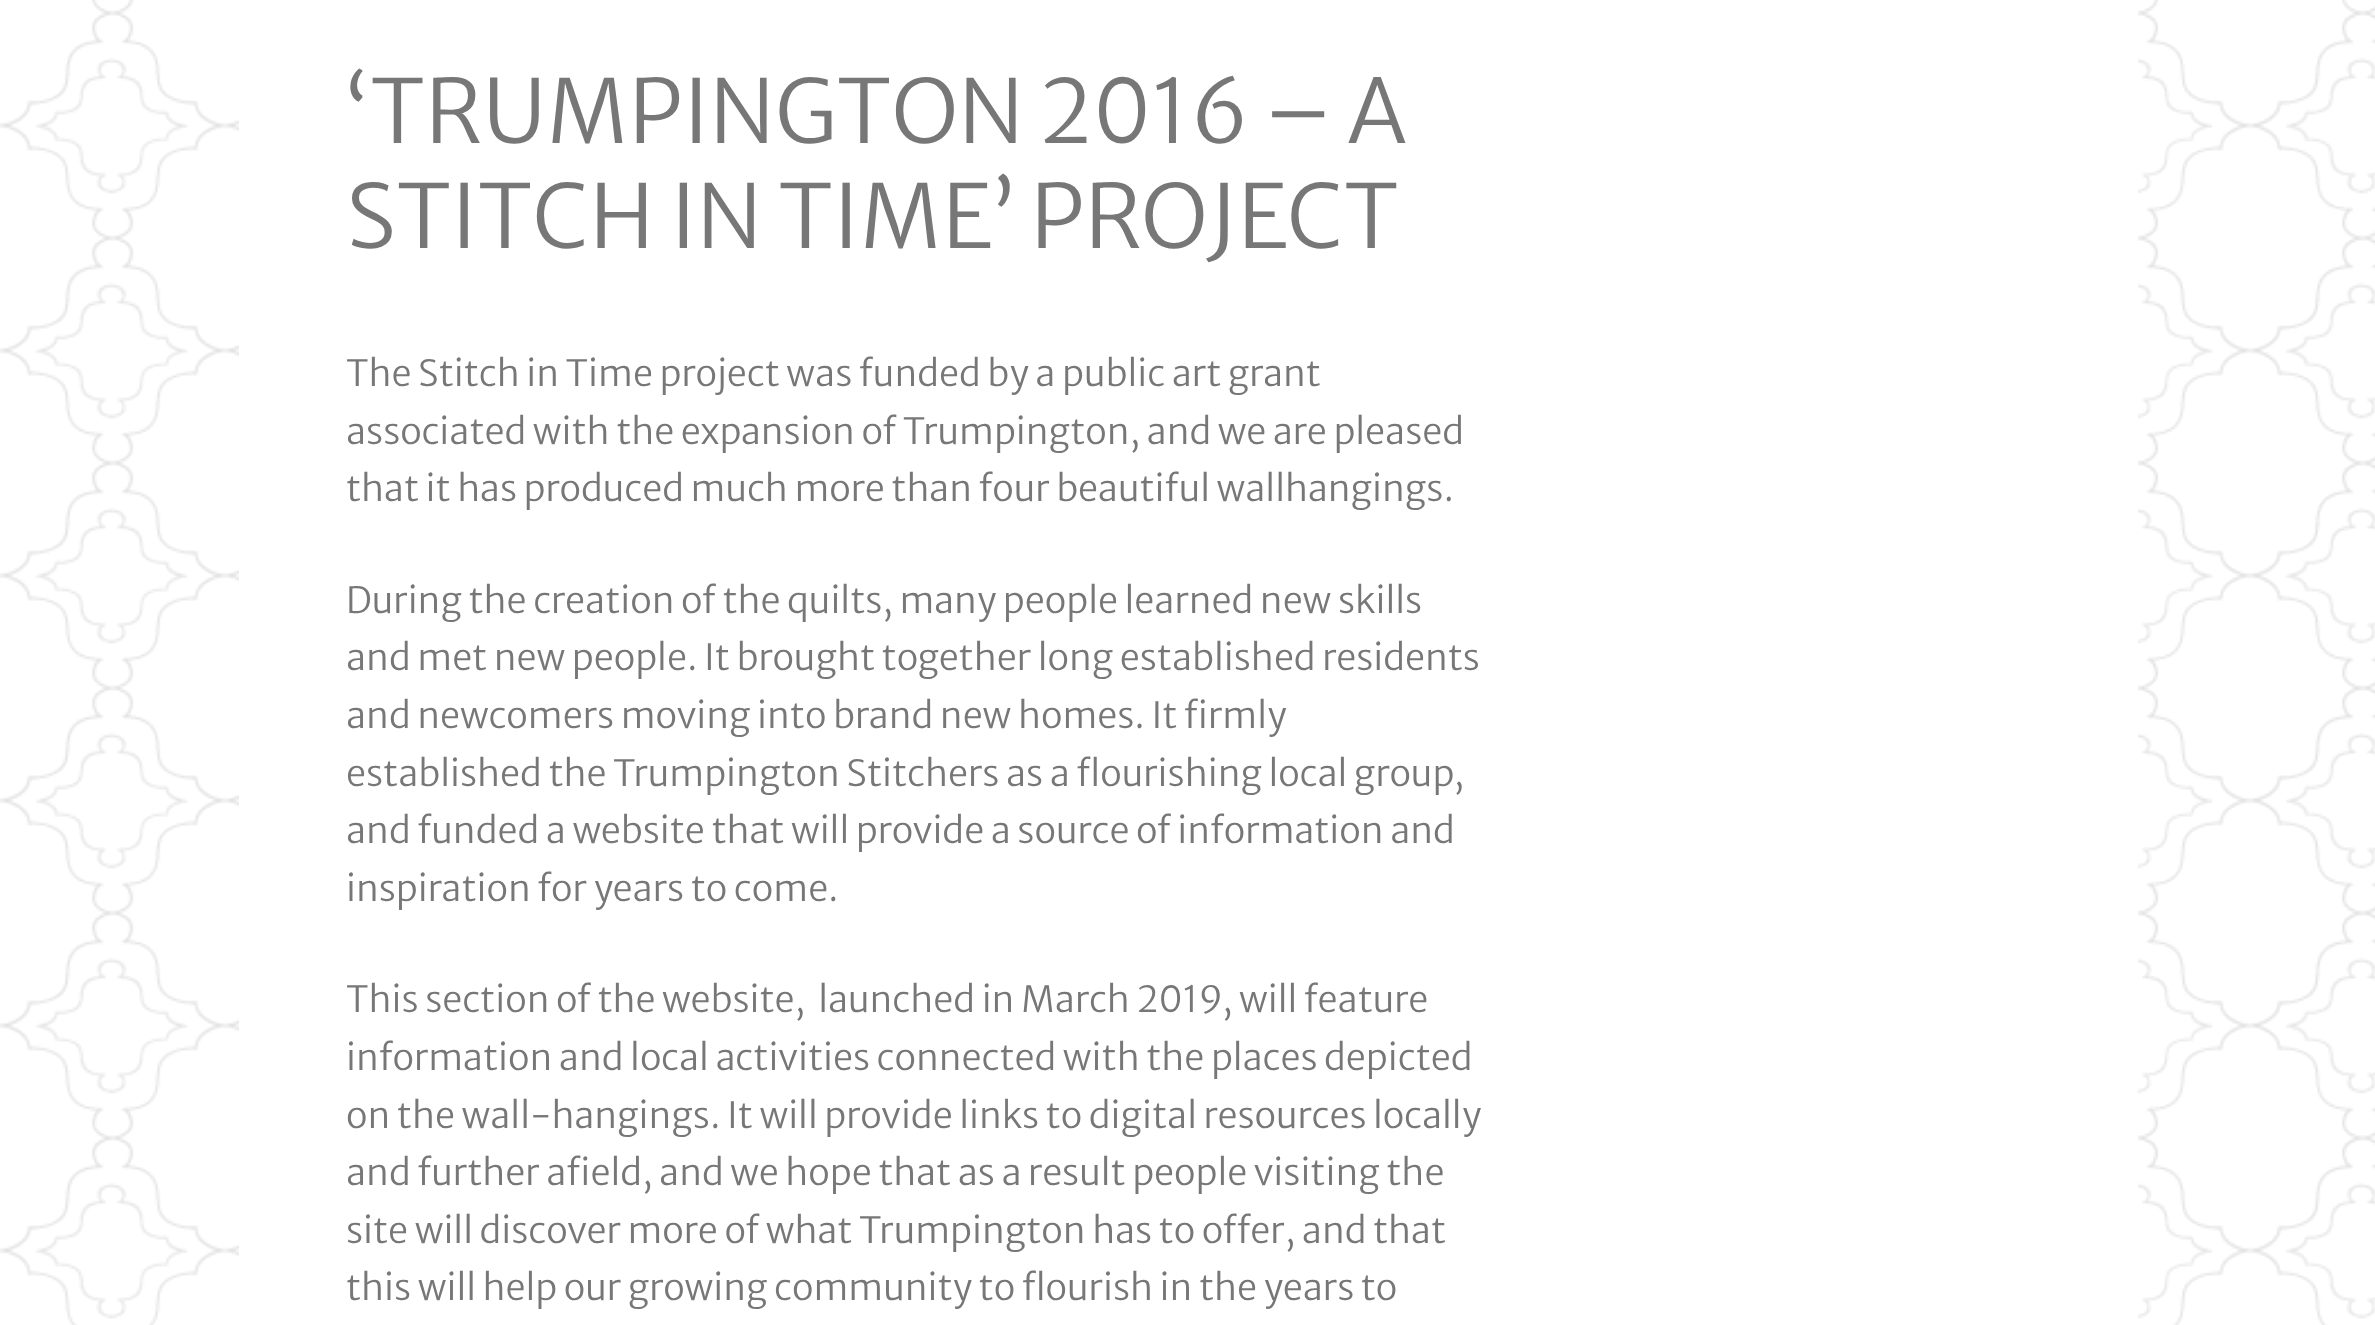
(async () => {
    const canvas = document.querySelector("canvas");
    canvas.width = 2375;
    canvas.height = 1325;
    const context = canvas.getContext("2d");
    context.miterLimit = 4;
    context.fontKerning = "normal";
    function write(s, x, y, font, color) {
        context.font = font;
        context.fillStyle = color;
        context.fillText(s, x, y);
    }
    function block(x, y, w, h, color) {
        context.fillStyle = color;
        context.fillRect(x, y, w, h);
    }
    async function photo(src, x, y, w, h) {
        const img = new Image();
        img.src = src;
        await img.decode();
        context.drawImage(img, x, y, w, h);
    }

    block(0, 0, 2375, 1325, "rgb(255, 255, 255)");
    await photo("media/1.png", 0, 0, 2375, 1325);
    block(239, 0, 1899, 1325, "rgb(255, 255, 255)");
    context.wordSpacing = "-1px";
    write("‘TRUMPINGTON 2016 – A", 346, 143, "300 87.9px Merriweather Sans", "rgb(119, 119, 119)");
    context.wordSpacing = "0px";
    write("STITCH IN TIME’ PROJECT", 346, 248, "300 87.9px Merriweather Sans", "rgb(119, 119, 119)");
    write("The Stitch in Time project was funded by a public art grant", 346, 386, "300 36px Merriweather Sans", "rgb(119, 119, 119)");
    write("associated with the expansion of Trumpington, and we are pleased", 346, 444, "300 36px Merriweather Sans", "rgb(119, 119, 119)");
    write("that it has produced much more than four beautiful wallhangings.", 346, 501, "300 36px Merriweather Sans", "rgb(119, 119, 119)");
    write("During the creation of the quilts, many people learned new skills", 346, 613, "300 36px Merriweather Sans", "rgb(119, 119, 119)");
    write("and met new people. It brought together long established residents", 346, 670, "300 36px Merriweather Sans", "rgb(119, 119, 119)");
    write("and newcomers moving into brand new homes. It firmly", 346, 728, "300 36px Merriweather Sans", "rgb(119, 119, 119)");
    write("established the Trumpington Stitchers as a flourishing local group,", 346, 786, "300 36px Merriweather Sans", "rgb(119, 119, 119)");
    write("and funded a website that will provide a source of information and", 346, 843, "300 36px Merriweather Sans", "rgb(119, 119, 119)");
    write("inspiration for years to come.", 346, 901, "300 36px Merriweather Sans", "rgb(119, 119, 119)");
    write("This section of the website,  launched in March 2019, will feature", 346, 1012, "300 36px Merriweather Sans", "rgb(119, 119, 119)");
    write("information and local activities connected with the places depicted", 346, 1070, "300 36px Merriweather Sans", "rgb(119, 119, 119)");
    write("on the wall-hangings. It will provide links to digital resources locally", 346, 1128, "300 36px Merriweather Sans", "rgb(119, 119, 119)");
    write("and further afield, and we hope that as a result people visiting the", 346, 1185, "300 36px Merriweather Sans", "rgb(119, 119, 119)");
    write("site will discover more of what Trumpington has to offer, and that", 346, 1243, "300 36px Merriweather Sans", "rgb(119, 119, 119)");
    write("this will help our growing community to flourish in the years to", 346, 1300, "300 36px Merriweather Sans", "rgb(119, 119, 119)");
})();
